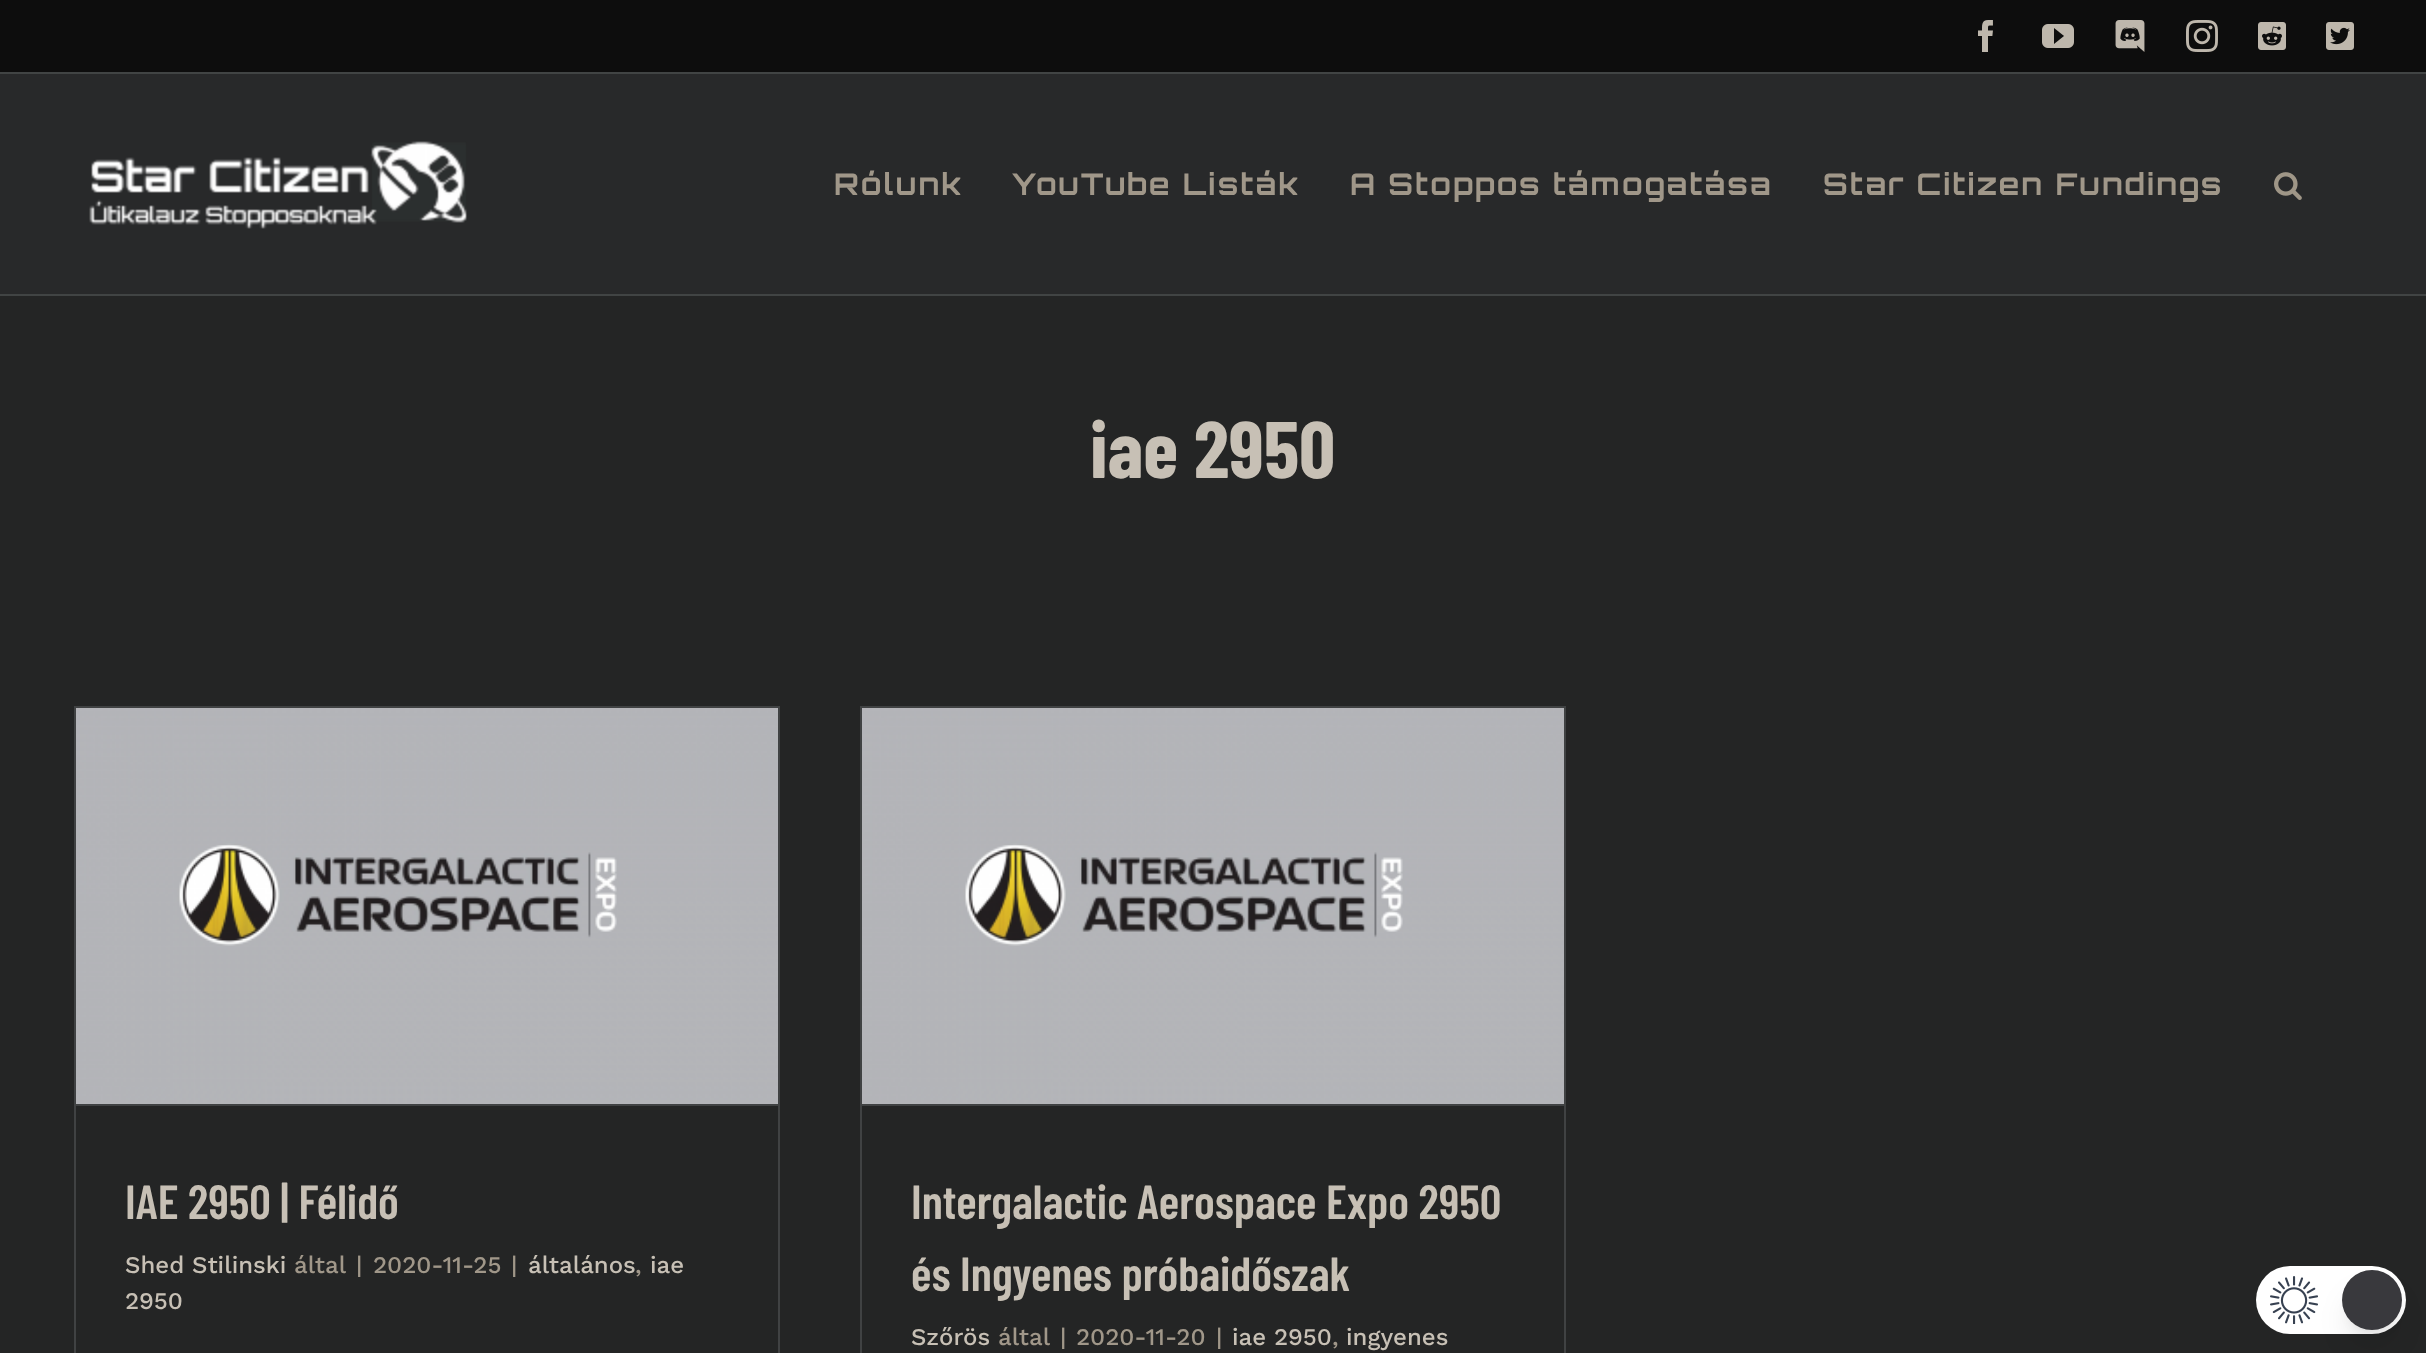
(async () => {
    const canvas = document.querySelector("canvas");
    canvas.width = 2426;
    canvas.height = 1353;
    const context = canvas.getContext("2d");
    context.miterLimit = 4;
    context.fontKerning = "normal";
    function write(s, x, y, font, color) {
        context.font = font;
        context.fillStyle = color;
        context.fillText(s, x, y);
    }
    function block(x, y, w, h, color) {
        context.fillStyle = color;
        context.fillRect(x, y, w, h);
    }
    function card(x, y, w, h, r, color) {
        context.fillStyle = color;
        context.beginPath();
        context.roundRect(x, y, w, h, r);
        context.fill();
    }
    async function photo(src, x, y, w, h) {
        const img = new Image();
        img.src = src;
        await img.decode();
        context.drawImage(img, x, y, w, h);
    }

    block(0, 0, 2426, 1353, "rgb(36, 37, 37)");
    block(0, 0, 2426, 72, "rgb(13, 13, 13)");
    block(0, 72, 2426, 2, "rgb(65, 68, 68)");
    await photo("media/1.png", 1978, 20, 15, 32);
    await photo("media/2.png", 2042, 24, 32, 24);
    await photo("media/3.png", 2115, 20, 30, 32);
    await photo("media/4.png", 2186, 20, 32, 32);
    await photo("media/5.png", 2258, 22, 28, 28);
    await photo("media/6.png", 2326, 22, 28, 28);
    block(0, 74, 2426, 220, "rgb(40, 41, 42)");
    block(0, 294, 2426, 2, "rgb(65, 68, 68)");
    await photo("media/7.png", 89, 141, 378, 88);
    context.letterSpacing = "2px";
    write("Rólunk", 834, 195, "bold 30px Orbitron", "rgb(160, 151, 137)");
    write("YouTube Listák", 1012, 195, "bold 30px Orbitron", "rgb(160, 151, 137)");
    write("A Stoppos támogatása", 1350, 195, "bold 30px Orbitron", "rgb(160, 151, 137)");
    write("Star Citizen Fundings", 1823, 195, "bold 30px Orbitron", "rgb(160, 151, 137)");
    await photo("media/8.png", 2274, 172, 28, 28);
    context.letterSpacing = "0px";
    write("iae 2950", 1090, 478, "bold 80px Barlow Condensed", "rgb(199, 192, 181)");
    block(74, 706, 706, 2, "rgb(64, 66, 67)");
    block(778, 706, 2, 647, "rgb(64, 66, 67)");
    block(74, 706, 2, 647, "rgb(64, 66, 67)");
    block(76, 1104, 702, 2, "rgb(64, 66, 67)");
    await photo("media/9.png", 76, 708, 702, 396);
    write("IAE 2950 | Félidő", 125, 1219, "600 48px Barlow Condensed", "rgb(199, 192, 181)");
    write("Shed Stilinski", 125, 1273, "500 24px Work Sans", "rgb(199, 192, 181)");
    write("által", 294, 1273, "500 24px Work Sans", "rgb(160, 151, 137)");
    write("|", 356, 1273, "500 24px Work Sans", "rgb(160, 151, 137)");
    write("2020-11-25", 373, 1273, "500 24px Work Sans", "rgb(160, 151, 137)");
    write("|", 511, 1273, "500 24px Work Sans", "rgb(160, 151, 137)");
    write("általános", 528, 1273, "500 24px Work Sans", "rgb(199, 192, 181)");
    write(",", 635, 1273, "500 24px Work Sans", "rgb(160, 151, 137)");
    write("iae", 650, 1273, "500 24px Work Sans", "rgb(199, 192, 181)");
    write("2950", 125, 1309, "500 24px Work Sans", "rgb(199, 192, 181)");
    block(860, 706, 706, 2, "rgb(64, 66, 67)");
    block(1564, 706, 2, 647, "rgb(64, 66, 67)");
    block(860, 706, 2, 647, "rgb(64, 66, 67)");
    block(862, 1104, 702, 2, "rgb(64, 66, 67)");
    await photo("media/10.png", 862, 708, 702, 396);
    write("Intergalactic Aerospace Expo 2950", 911, 1219, "600 48px Barlow Condensed", "rgb(199, 192, 181)");
    write("és Ingyenes próbaidőszak", 911, 1291, "600 48px Barlow Condensed", "rgb(199, 192, 181)");
    write("Szőrös", 911, 1345, "500 24px Work Sans", "rgb(199, 192, 181)");
    write("által", 998, 1345, "500 24px Work Sans", "rgb(160, 151, 137)");
    write("|", 1060, 1345, "500 24px Work Sans", "rgb(160, 151, 137)");
    write("2020-11-20", 1076, 1345, "500 24px Work Sans", "rgb(160, 151, 137)");
    write("|", 1216, 1345, "500 24px Work Sans", "rgb(160, 151, 137)");
    write("iae 2950", 1232, 1345, "500 24px Work Sans", "rgb(199, 192, 181)");
    write(",", 1332, 1345, "500 24px Work Sans", "rgb(160, 151, 137)");
    write("ingyenes", 1346, 1345, "500 24px Work Sans", "rgb(199, 192, 181)");
    card(2256, 1266, 150, 68, 34, "rgb(255, 255, 255)");
    await photo("media/11.png", 2270, 1276, 48, 48);
    context.fillStyle = "rgba(0, 0, 0, 0.1)";
    context.filter = "blur(6px)";
    context.beginPath();
    context.roundRect(2350, 1286, 44, 44, 22);
    context.fill();
    context.filter = "none";
    context.filter = "blur(15px)";
    context.beginPath();
    context.roundRect(2348, 1296, 48, 48, 24);
    context.fill();
    context.filter = "none";
    context.fillStyle = "rgb(57, 57, 61)";
    context.beginPath();
    context.arc(2372, 1300, 30, 0, Math.PI * 2);
    context.fill();
})();
